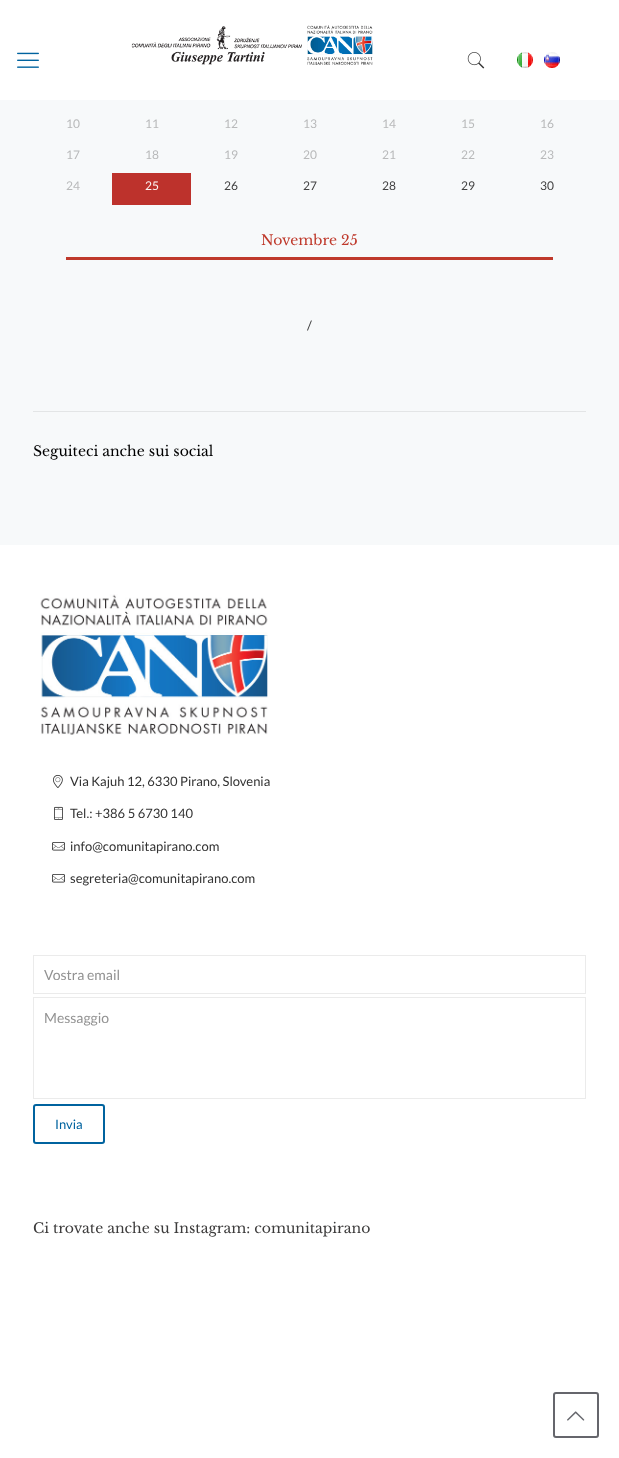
(async () => {
    const canvas = document.querySelector("canvas");
    canvas.width = 619;
    canvas.height = 1458;
    const context = canvas.getContext("2d");
    context.miterLimit = 4;
    context.fontKerning = "normal";
    function write(s, x, y, font, color) {
        context.font = font;
        context.fillStyle = color;
        context.fillText(s, x, y);
    }
    function block(x, y, w, h, color) {
        context.fillStyle = color;
        context.fillRect(x, y, w, h);
    }
    async function photo(src, x, y, w, h) {
        const img = new Image();
        img.src = src;
        await img.decode();
        context.drawImage(img, x, y, w, h);
    }

    block(0, 0, 619, 1458, "rgb(247, 249, 250)");
    block(0, 0, 619, 100, "rgb(255, 255, 255)");
    await photo("media/1.png", 17, 52, 22, 16);
    await photo("media/2.png", 131, 25, 242, 40);
    await photo("media/3.png", 467, 52, 18, 17);
    await photo("media/4.png", 517, 52, 16, 16);
    await photo("media/5.png", 544, 52, 16, 16);
    write("10", 66, 128, "12px Lato", "rgb(184, 185, 186)");
    write("11", 145, 128, "12px Lato", "rgb(184, 185, 186)");
    write("12", 224, 128, "12px Lato", "rgb(184, 185, 186)");
    write("13", 303, 128, "12px Lato", "rgb(184, 185, 186)");
    write("14", 382, 128, "12px Lato", "rgb(184, 185, 186)");
    write("15", 461, 128, "12px Lato", "rgb(184, 185, 186)");
    write("16", 540, 128, "12px Lato", "rgb(184, 185, 186)");
    write("17", 66, 159, "12px Lato", "rgb(184, 185, 186)");
    write("18", 145, 159, "12px Lato", "rgb(184, 185, 186)");
    write("19", 224, 159, "12px Lato", "rgb(184, 185, 186)");
    write("20", 303, 159, "12px Lato", "rgb(184, 185, 186)");
    write("21", 382, 159, "12px Lato", "rgb(184, 185, 186)");
    write("22", 461, 159, "12px Lato", "rgb(184, 185, 186)");
    write("23", 540, 159, "12px Lato", "rgb(184, 185, 186)");
    write("24", 66, 190, "12px Lato", "rgb(184, 185, 186)");
    block(112, 173, 79, 32, "rgb(189, 50, 44)");
    write("25", 145, 190, "12px Lato", "rgb(252, 245, 244)");
    write("26", 224, 190, "12px Lato", "rgb(66, 66, 66)");
    write("27", 303, 190, "12px Lato", "rgb(66, 66, 66)");
    write("28", 382, 190, "12px Lato", "rgb(66, 66, 66)");
    write("29", 461, 190, "12px Lato", "rgb(66, 66, 66)");
    write("30", 540, 190, "12px Lato", "rgb(66, 66, 66)");
    write("Novembre 25", 261, 245, "14px Libre Baskerville", "rgb(191, 57, 43)");
    block(66, 257, 487, 3, "rgb(191, 57, 43)");
    write("/", 307, 330, "13px Lato", "rgb(66, 66, 66)");
    block(33, 411, 553, 1, "rgb(227, 229, 230)");
    write("Seguiteci anche sui social", 33, 456, "14px Libre Baskerville", "rgb(0, 0, 0)");
    block(0, 545, 619, 913, "rgb(255, 255, 255)");
    await photo("media/6.png", 40, 594, 228, 141);
    await photo("media/7.png", 53, 774, 10, 14);
    write("Via Kajuh 12, 6330 Pirano, Slovenia", 70, 786, "13px Lato", "rgb(51, 51, 51)");
    await photo("media/8.png", 54, 806, 9, 14);
    write("Tel.: +386 5 6730 140", 70, 818, "13px Lato", "rgb(51, 51, 51)");
    await photo("media/9.png", 52, 842, 13, 9);
    write("info@comunitapirano.com", 70, 851, "13px Lato", "rgb(51, 51, 51)");
    await photo("media/9.png", 52, 874, 13, 9);
    write("segreteria@comunitapirano.com", 70, 883, "13px Lato", "rgb(51, 51, 51)");
    context.strokeStyle = "rgb(235, 235, 235)";
    context.strokeRect(33.5, 955.5, 552, 38);
    write("Vostra email", 44, 980, "14px Lato", "rgb(146, 146, 146)");
    context.strokeRect(33.5, 997.5, 552, 101);
    write("Messaggio", 44, 1023, "14px Lato", "rgb(146, 146, 146)");
    context.beginPath();
    context.roundRect(34, 1105, 70, 38, 2);
    context.strokeStyle = "rgb(0, 99, 159)";
    context.lineWidth = 2;
    context.stroke();
    write("Invia", 55, 1129, "13px Lato", "rgb(0, 99, 159)");
    write("Ci trovate anche su Instagram: comunitapirano", 33, 1233, "14px Libre Baskerville", "rgb(61, 60, 60)");
    context.beginPath();
    context.roundRect(554, 1393, 44, 44, 2);
    context.strokeStyle = "rgb(101, 102, 108)";
    context.stroke();
    await photo("media/10.png", 567, 1411, 18, 10);
})();
